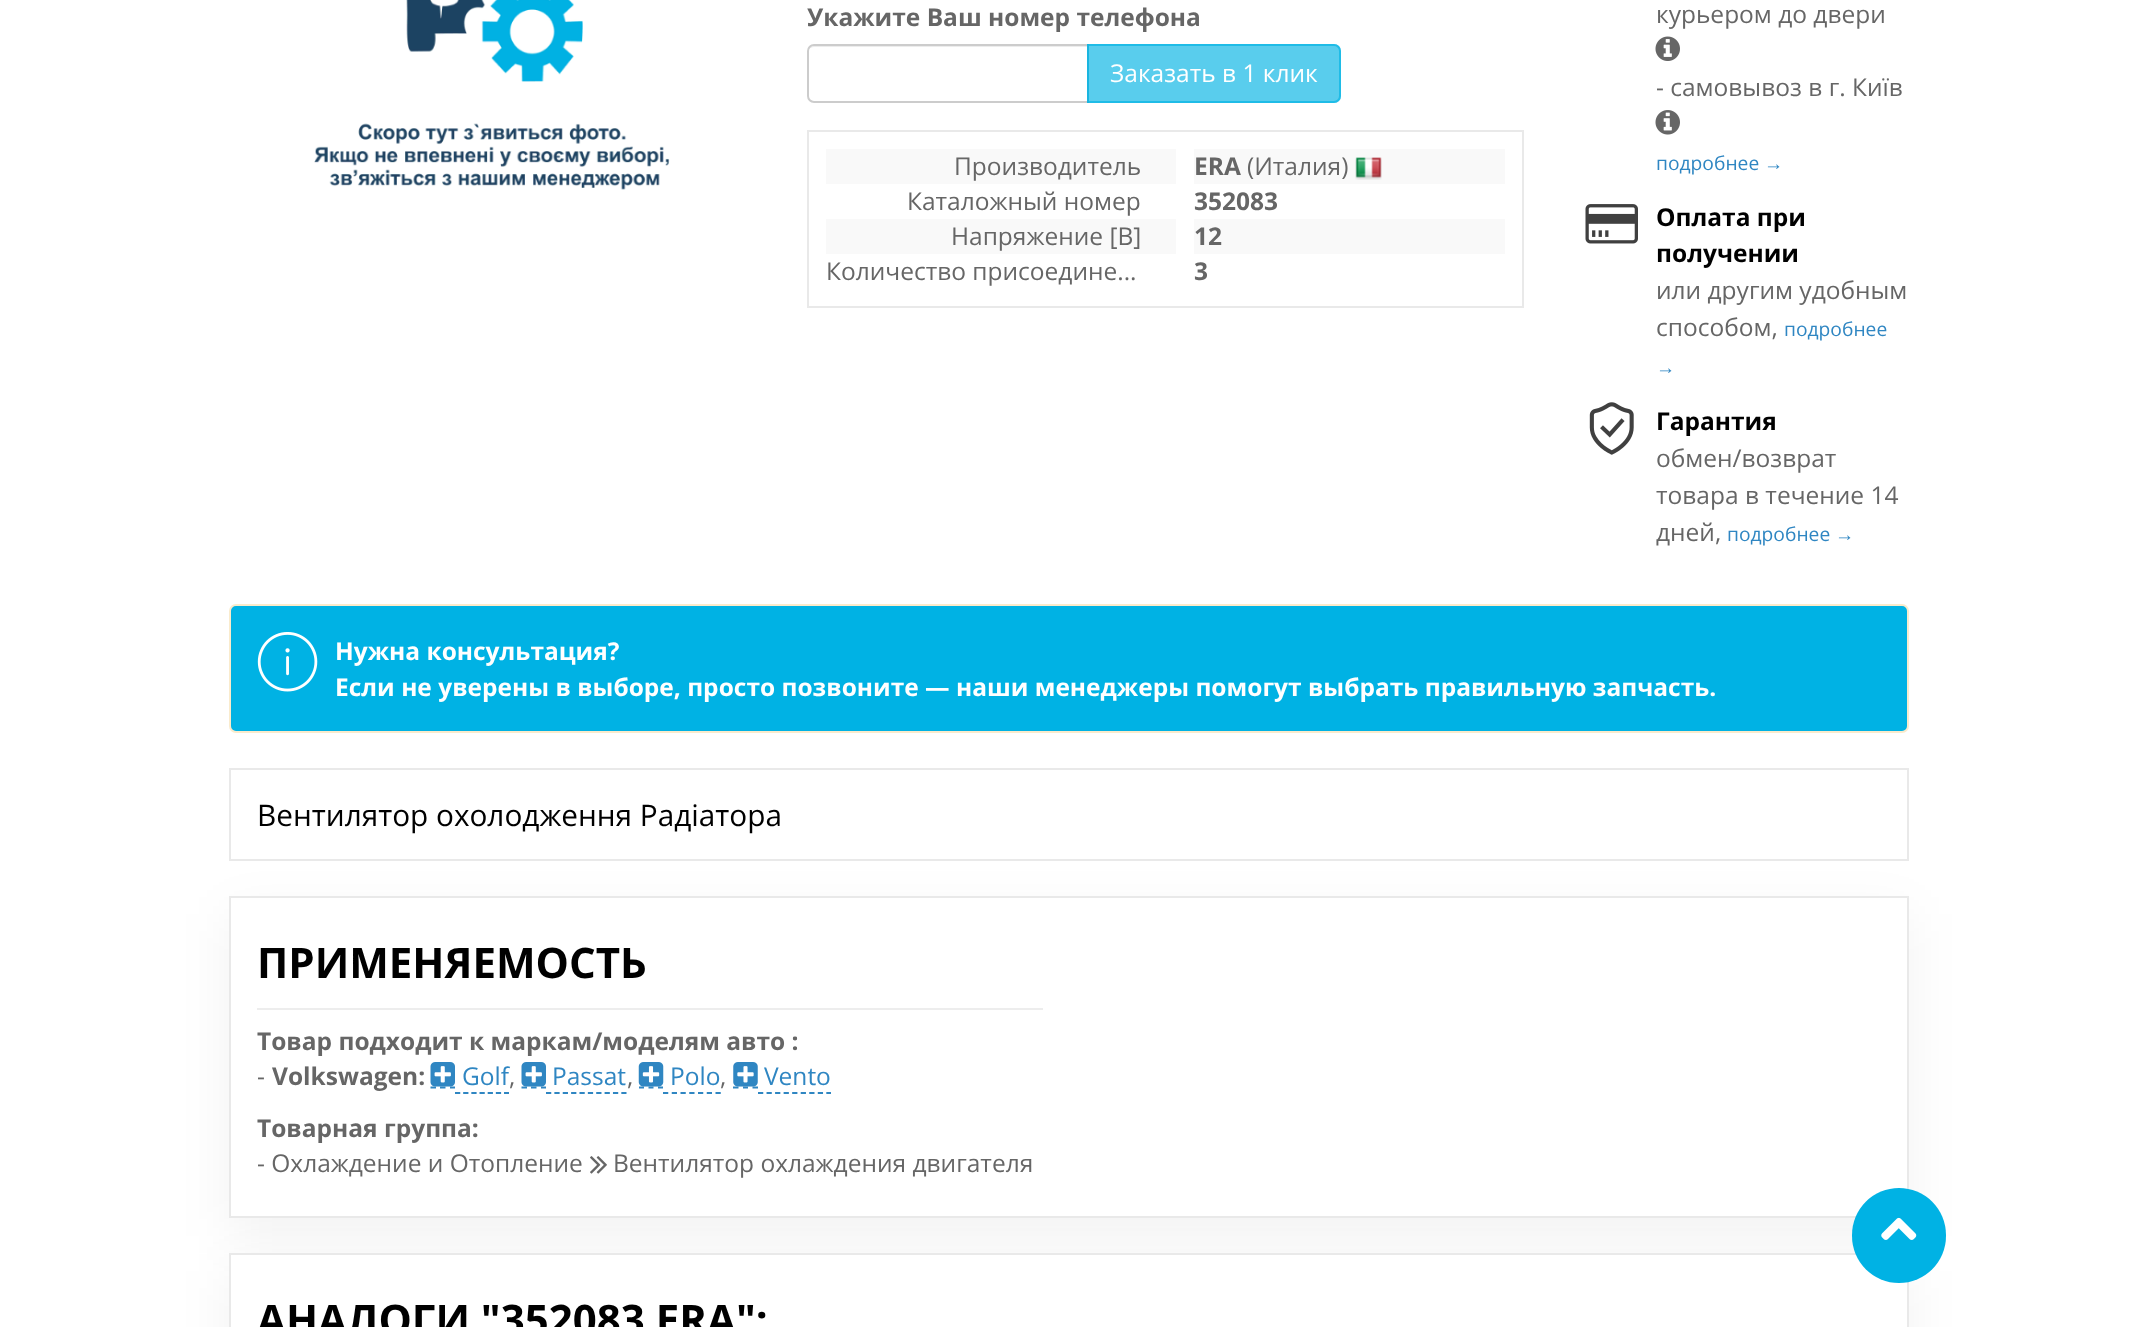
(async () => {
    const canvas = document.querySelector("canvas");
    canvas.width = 2138;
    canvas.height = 1327;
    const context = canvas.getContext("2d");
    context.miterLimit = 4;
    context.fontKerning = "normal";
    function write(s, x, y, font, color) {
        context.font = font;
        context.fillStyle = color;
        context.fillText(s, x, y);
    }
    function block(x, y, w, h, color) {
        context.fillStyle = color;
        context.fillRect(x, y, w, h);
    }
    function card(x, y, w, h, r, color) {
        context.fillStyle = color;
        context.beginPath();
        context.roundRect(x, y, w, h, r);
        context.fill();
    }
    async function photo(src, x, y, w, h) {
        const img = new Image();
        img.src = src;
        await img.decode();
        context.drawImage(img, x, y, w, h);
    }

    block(0, 0, 2138, 1327, "rgb(255, 255, 255)");
    await photo("media/1.png", 314, 0, 356, 190);
    write("Укажите Ваш номер телефона", 807, 26, "bold 24.5px Open Sans", "rgb(102, 102, 102)");
    context.fillStyle = "rgb(236, 236, 236)";
    context.beginPath();
    context.moveTo(814, 47);
    context.lineTo(1087, 47);
    context.lineTo(1087, 46);
    context.lineTo(814, 46);
    context.bezierCurveTo(812, 46, 810, 47, 809, 49);
    context.bezierCurveTo(810, 48, 812, 47, 814, 47);
    context.closePath();
    context.fill();
    context.beginPath();
    context.roundRect(808, 45, 280, 57, [6, 0, 0, 6]);
    context.strokeStyle = "rgb(204, 204, 204)";
    context.lineWidth = 2;
    context.stroke();
    context.fillStyle = "rgba(0, 178, 228, 0.65)";
    context.beginPath();
    context.roundRect(1087, 44, 254, 59, [0, 7, 7, 0]);
    context.fill();
    context.beginPath();
    context.roundRect(1088, 45, 252, 57, [0, 6, 6, 0]);
    context.strokeStyle = "rgba(0, 178, 228, 0.65)";
    context.stroke();
    write("Заказать в 1 клик", 1110, 82, "24.5px Open Sans", "rgb(255, 255, 255)");
    context.strokeStyle = "rgb(233, 233, 233)";
    context.strokeRect(808, 131, 715, 176);
    block(826, 149, 350, 35, "rgb(249, 249, 249)");
    write("Производитель", 954, 175, "24.5px Open Sans", "rgb(102, 102, 102)");
    block(1194, 149, 311, 35, "rgb(249, 249, 249)");
    write("ERA", 1194, 175, "bold 24.5px Open Sans", "rgb(102, 102, 102)");
    write("(Италия)", 1247, 175, "24.5px Open Sans", "rgb(102, 102, 102)");
    await photo("media/2.png", 1355, 157, 27, 23);
    write("Каталожный номер", 907, 210, "24.5px Open Sans", "rgb(102, 102, 102)");
    write("352083", 1194, 210, "bold 24.5px Open Sans", "rgb(102, 102, 102)");
    block(826, 219, 350, 35, "rgb(249, 249, 249)");
    write("Напряжение [В]", 951, 245, "24.5px Open Sans", "rgb(102, 102, 102)");
    block(1194, 219, 311, 35, "rgb(249, 249, 249)");
    write("12", 1194, 245, "bold 24.5px Open Sans", "rgb(102, 102, 102)");
    write("Количество присоедине...", 826, 280, "24.5px Open Sans", "rgb(102, 102, 102)");
    write("3", 1194, 280, "bold 24.5px Open Sans", "rgb(102, 102, 102)");
    write("курьером до двери", 1656, 23, "24.5px Open Sans", "rgb(102, 102, 102)");
    await photo("media/3.png", 1655, 36, 25, 25);
    write("- самовывоз в г. Київ", 1656, 96, "24.5px Open Sans", "rgb(102, 102, 102)");
    await photo("media/4.png", 1655, 110, 25, 25);
    write("подробнее", 1656, 170, "19.25px Open Sans", "rgb(47, 134, 194)");
    write("→", 1764, 170, "19.25px Liberation Sans", "rgb(47, 134, 194)");
    await photo("media/5.png", 1585, 204, 53, 40);
    write("Оплата при", 1656, 226, "bold 24.5px Open Sans", "rgb(0, 0, 0)");
    write("получении", 1656, 262, "bold 24.5px Open Sans", "rgb(0, 0, 0)");
    write("или другим удобным", 1656, 299, "24.5px Open Sans", "rgb(102, 102, 102)");
    write("способом,", 1656, 336, "24.5px Open Sans", "rgb(102, 102, 102)");
    write("подробнее", 1784, 336, "19.25px Open Sans", "rgb(47, 134, 194)");
    write("→", 1656, 374, "19.25px Liberation Sans", "rgb(47, 134, 194)");
    await photo("media/6.png", 1589, 402, 45, 53);
    write("Гарантия", 1656, 430, "bold 24.5px Open Sans", "rgb(0, 0, 0)");
    write("обмен/возврат", 1656, 467, "24.5px Open Sans", "rgb(102, 102, 102)");
    write("товара в течение 14", 1656, 504, "24.5px Open Sans", "rgb(102, 102, 102)");
    write("дней,", 1656, 541, "24.5px Open Sans", "rgb(102, 102, 102)");
    write("подробнее", 1727, 541, "19.25px Open Sans", "rgb(47, 134, 194)");
    write("→", 1835, 541, "19.25px Liberation Sans", "rgb(47, 134, 194)");
    context.fillStyle = "rgb(0, 178, 228)";
    context.beginPath();
    context.roundRect(230, 605, 1678, 127, 6);
    context.fill();
    context.strokeStyle = "rgb(250, 235, 204)";
    context.stroke();
    await photo("media/7.png", 257, 632, 61, 60);
    write("Нужна консультация?", 335, 660, "bold 24.5px Open Sans", "rgb(255, 255, 255)");
    write("Если не уверены в выборе, просто позвоните — наши менеджеры помогут выбрать правильную запчасть.", 335, 696, "bold 24.5px Open Sans", "rgb(255, 255, 255)");
    context.strokeStyle = "rgb(233, 233, 233)";
    context.strokeRect(230, 769, 1678, 91);
    write("Вентилятор охолодження Радіатора", 257, 826, "29.75px Open Sans", "rgb(0, 0, 0)");
    context.fillStyle = "rgba(0, 0, 0, 0.05)";
    context.filter = "blur(26px)";
    context.beginPath();
    context.rect(229, 914, 1680, 322);
    context.fill();
    context.filter = "none";
    context.fillStyle = "rgb(255, 255, 255)";
    context.beginPath();
    context.rect(230, 897, 1678, 320);
    context.fill();
    context.stroke();
    block(257, 1008, 786, 2, "rgb(237, 237, 237)");
    write("ПРИМЕНЯЕМОСТЬ", 257, 978, "bold 42px Open Sans", "rgb(0, 0, 0)");
    write("Товар подходит к маркам/моделям авто :", 257, 1050, "bold 24.5px Open Sans", "rgb(102, 102, 102)");
    write("-", 257, 1085, "24.5px Open Sans", "rgb(102, 102, 102)");
    write("Volkswagen:", 272, 1085, "bold 24.5px Open Sans", "rgb(102, 102, 102)");
    context.beginPath();
    context.moveTo(430.5, 1087.5);
    context.lineTo(436, 1087.5);
    context.moveTo(440, 1087.5);
    context.lineTo(445.5, 1087.5);
    context.moveTo(450, 1087.5);
    context.lineTo(455, 1087.5);
    context.strokeStyle = "rgb(47, 134, 194)";
    context.lineWidth = 1.8;
    context.stroke();
    await photo("media/8.png", 430, 1062, 25, 25);
    write("Golf", 462, 1085, "24.5px Open Sans", "rgb(47, 134, 194)");
    context.beginPath();
    context.moveTo(455, 1093);
    context.lineTo(509, 1093);
    context.setLineDash([5.25, 2.92]);
    context.stroke();
    context.beginPath();
    context.moveTo(521.5, 1087.5);
    context.lineTo(527, 1087.5);
    context.moveTo(531, 1087.5);
    context.lineTo(536.5, 1087.5);
    context.moveTo(541, 1087.5);
    context.lineTo(546, 1087.5);
    context.setLineDash([]);
    context.stroke();
    await photo("media/8.png", 521, 1062, 25, 25);
    write("Passat", 552, 1085, "24.5px Open Sans", "rgb(47, 134, 194)");
    context.beginPath();
    context.moveTo(546, 1093);
    context.lineTo(626.5, 1093);
    context.setLineDash([5.25, 3.12]);
    context.stroke();
    context.beginPath();
    context.moveTo(639, 1087.5);
    context.lineTo(644, 1087.5);
    context.moveTo(648.5, 1087.5);
    context.lineTo(653.5, 1087.5);
    context.moveTo(658, 1087.5);
    context.lineTo(663, 1087.5);
    context.setLineDash([]);
    context.stroke();
    await photo("media/9.png", 638, 1062, 26, 25);
    write("Polo", 670, 1085, "24.5px Open Sans", "rgb(47, 134, 194)");
    context.beginPath();
    context.moveTo(663, 1093);
    context.lineTo(721, 1093);
    context.setLineDash([5.25, 3.5]);
    context.stroke();
    context.beginPath();
    context.moveTo(733, 1087.5);
    context.lineTo(738.5, 1087.5);
    context.moveTo(743, 1087.5);
    context.lineTo(748, 1087.5);
    context.moveTo(752.5, 1087.5);
    context.lineTo(758, 1087.5);
    context.setLineDash([]);
    context.stroke();
    await photo("media/10.png", 733, 1062, 25, 25);
    write("Vento", 764, 1085, "24.5px Open Sans", "rgb(47, 134, 194)");
    context.beginPath();
    context.moveTo(758, 1093);
    context.lineTo(831, 1093);
    context.setLineDash([5.25, 3.29]);
    context.stroke();
    write(",", 509, 1085, "24.5px Open Sans", "rgb(102, 102, 102)");
    write(",", 627, 1085, "24.5px Open Sans", "rgb(102, 102, 102)");
    write(",", 720, 1085, "24.5px Open Sans", "rgb(102, 102, 102)");
    write("Товарная группа:", 257, 1137, "bold 24.5px Open Sans", "rgb(102, 102, 102)");
    write("- Охлаждение и Отопление", 257, 1172, "24.5px Open Sans", "rgb(102, 102, 102)");
    await photo("media/11.png", 590, 1156, 17, 18);
    write("Вентилятор охлаждения двигателя", 613, 1172, "24.5px Open Sans", "rgb(102, 102, 102)");
    context.fillStyle = "rgba(0, 0, 0, 0.05)";
    context.filter = "blur(26px)";
    context.beginPath();
    context.rect(229, 1271, 1680, 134);
    context.fill();
    context.filter = "none";
    context.fillStyle = "rgb(255, 255, 255)";
    context.beginPath();
    context.rect(230, 1254, 1678, 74);
    context.fill();
    context.strokeStyle = "rgb(233, 233, 233)";
    context.lineWidth = 2;
    context.setLineDash([]);
    context.stroke();
    write("АНАЛОГИ \"352083 ERA\":", 257, 1335, "bold 42px Open Sans", "rgb(0, 0, 0)");
    card(1852, 1188, 94, 95, 47, "rgb(0, 178, 228)");
    await photo("media/12.png", 1881, 1217, 36, 23);
})();
